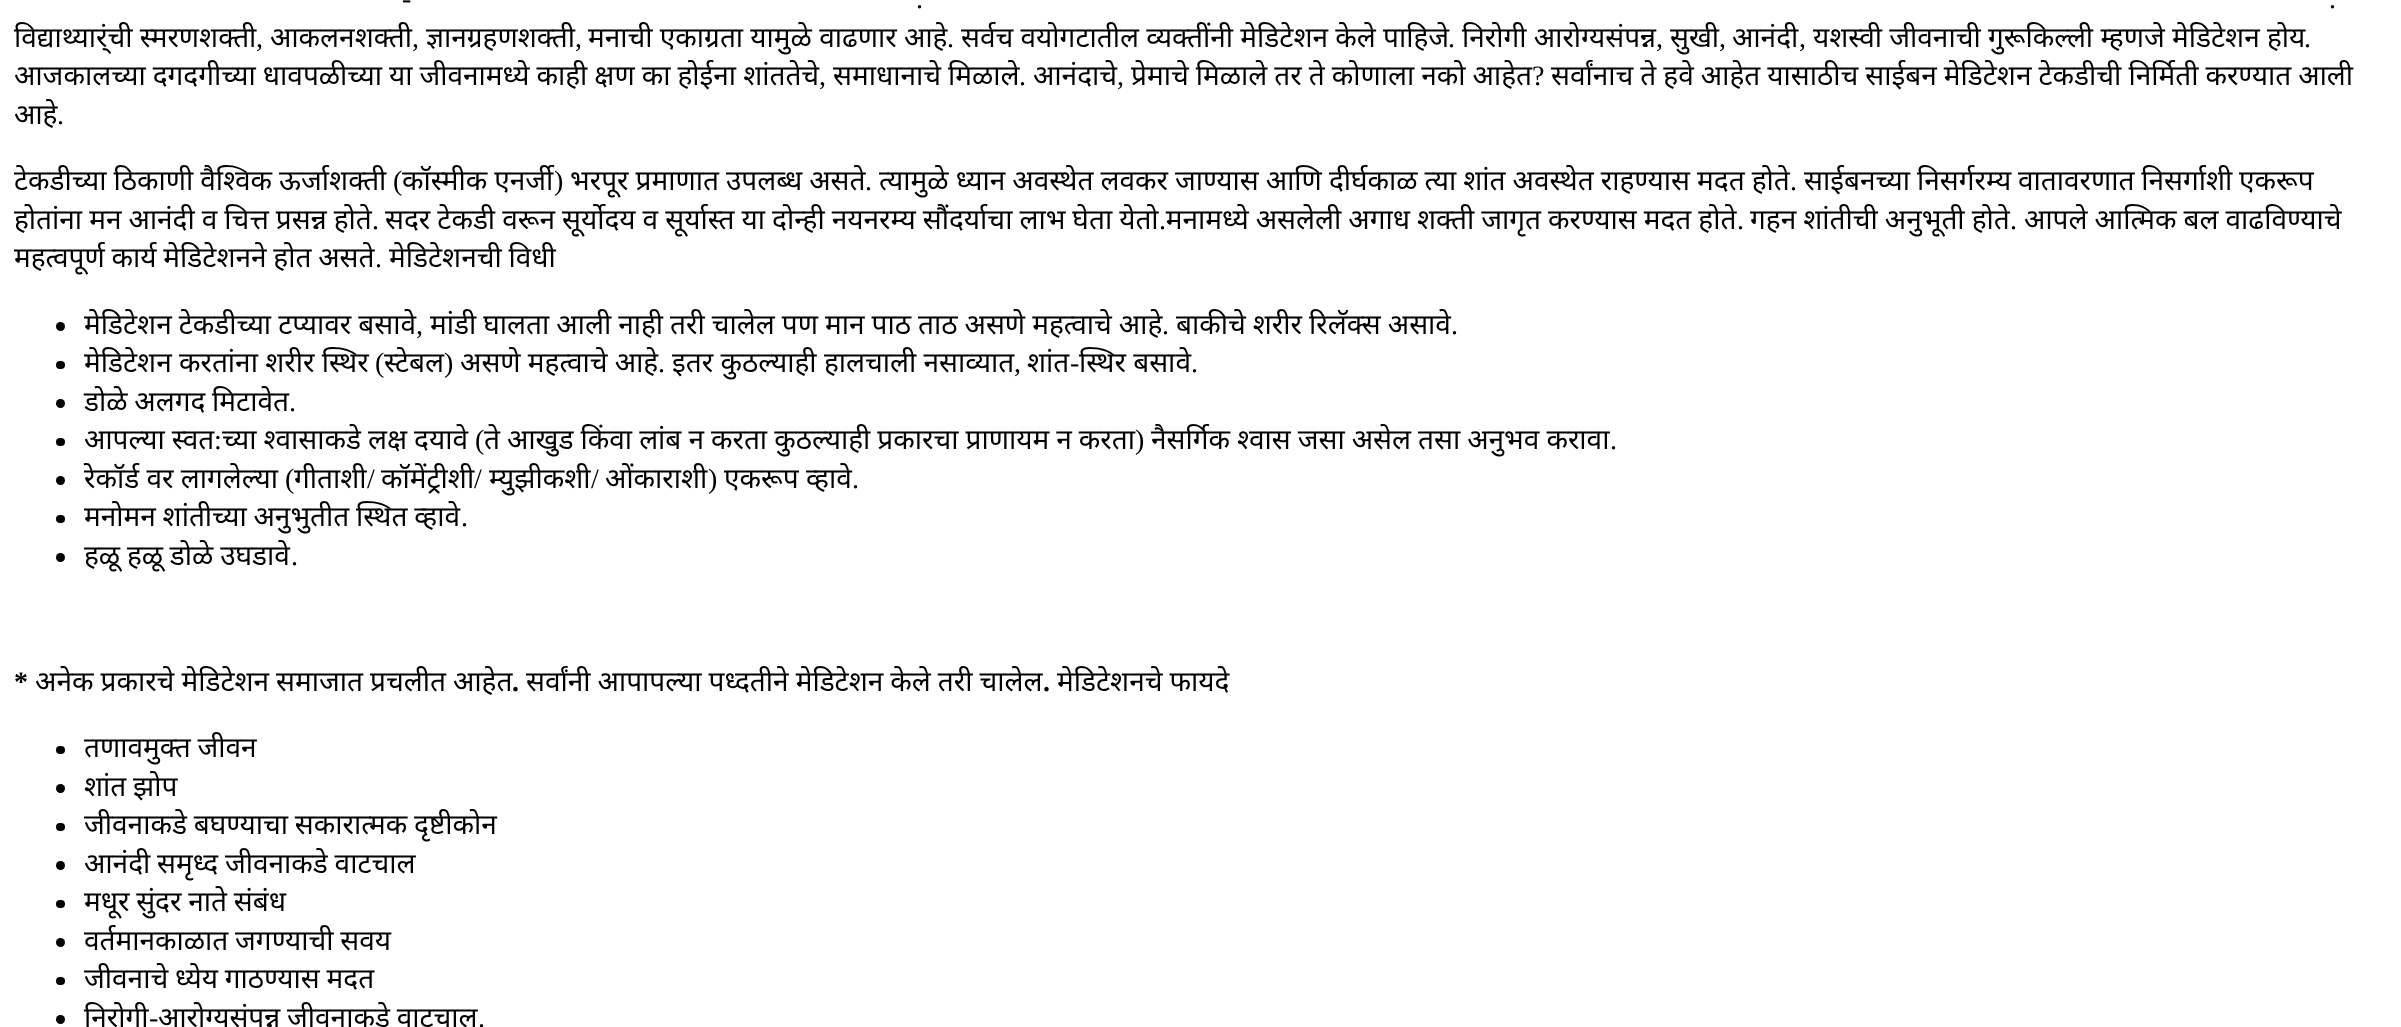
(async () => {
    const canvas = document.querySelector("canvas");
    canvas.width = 2401;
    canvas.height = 1027;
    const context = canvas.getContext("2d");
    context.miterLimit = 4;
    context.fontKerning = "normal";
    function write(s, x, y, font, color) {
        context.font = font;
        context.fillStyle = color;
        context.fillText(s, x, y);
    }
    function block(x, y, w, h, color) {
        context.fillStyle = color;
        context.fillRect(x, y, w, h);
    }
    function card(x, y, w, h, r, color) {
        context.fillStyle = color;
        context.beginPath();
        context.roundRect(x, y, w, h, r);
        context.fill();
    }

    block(0, 0, 2401, 1027, "rgb(255, 255, 255)");
    write("-", 402, 8, "28px Liberation Serif", "rgb(0, 0, 0)");
    write(".", 916, 8, "28px Liberation Serif", "rgb(0, 0, 0)");
    write(".", 2329, 8, "28px Liberation Serif", "rgb(0, 0, 0)");
    write("विद्याथ्यार्ंची स्मरणशक्ती", 14, 47, "28px Noto Sans", "rgb(0, 0, 0)");
    write(",", 256, 47, "28px Liberation Serif", "rgb(0, 0, 0)");
    write("आकलनशक्ती", 270, 47, "28px Noto Sans", "rgb(0, 0, 0)");
    write(",", 412, 47, "28px Liberation Serif", "rgb(0, 0, 0)");
    write("ज्ञानग्रहणशक्ती", 426, 47, "28px Noto Sans", "rgb(0, 0, 0)");
    write(",", 575, 47, "28px Liberation Serif", "rgb(0, 0, 0)");
    write("मनाची एकाग्रता यामुळे वाढणार आहे", 588, 47, "28px Noto Sans", "rgb(0, 0, 0)");
    write(".", 947, 47, "28px Liberation Serif", "rgb(0, 0, 0)");
    write("सर्वच वयोगटातील व्यक्तींनी मेडिटेशन केले पाहिजे", 961, 47, "28px Noto Sans", "rgb(0, 0, 0)");
    write(".", 1448, 47, "28px Liberation Serif", "rgb(0, 0, 0)");
    write("निरोगी आरोग्यसंपन्न", 1462, 47, "28px Noto Sans", "rgb(0, 0, 0)");
    write(",", 1656, 47, "28px Liberation Serif", "rgb(0, 0, 0)");
    write("सुखी", 1670, 47, "28px Noto Sans", "rgb(0, 0, 0)");
    write("आनंदी", 1732, 47, "28px Noto Sans", "rgb(0, 0, 0)");
    write("यशस्वी जीवनाची गुरूकिल्ली म्हणजे मेडिटेशन होय", 1813, 47, "28px Noto Sans", "rgb(0, 0, 0)");
    write(",", 1719, 47, "28px Liberation Serif", "rgb(0, 0, 0)");
    write(",", 1799, 47, "28px Liberation Serif", "rgb(0, 0, 0)");
    write(".", 2304, 47, "28px Liberation Serif", "rgb(0, 0, 0)");
    context.wordSpacing = "-0.25px";
    write("आजकालच्या दगदगीच्या धावपळीच्या या जीवनामध्ये काही क्षण का होईना शांततेचे", 14, 85, "28px Noto Sans", "rgb(0, 0, 0)");
    context.wordSpacing = "0px";
    write(",", 819, 85, "28px Liberation Serif", "rgb(0, 0, 0)");
    context.wordSpacing = "-0.25px";
    write("समाधानाचे मिळाले", 833, 85, "28px Noto Sans", "rgb(0, 0, 0)");
    context.wordSpacing = "0px";
    write(".", 1019, 85, "28px Liberation Serif", "rgb(0, 0, 0)");
    write("आनंदाचे", 1033, 85, "28px Noto Sans", "rgb(0, 0, 0)");
    write(",", 1117, 85, "28px Liberation Serif", "rgb(0, 0, 0)");
    context.wordSpacing = "-0.25px";
    write("प्रेमाचे मिळाले तर ते कोणाला नको आहेत", 1131, 85, "28px Noto Sans", "rgb(0, 0, 0)");
    context.wordSpacing = "0px";
    write("?", 1532, 85, "28px Liberation Serif", "rgb(0, 0, 0)");
    context.wordSpacing = "-0.25px";
    write("सर्वांनाच ते हवे आहेत यासाठीच साईबन मेडिटेशन टेकडीची निर्मिती करण्यात आली", 1551, 85, "28px Noto Sans", "rgb(0, 0, 0)");
    context.wordSpacing = "0px";
    write("आहे", 14, 124, "28px Noto Sans", "rgb(0, 0, 0)");
    write(".", 57, 124, "28px Liberation Serif", "rgb(0, 0, 0)");
    context.wordSpacing = "-0.25px";
    write("टेकडीच्या ठिकाणी वैश्विक ऊर्जाशक्ती", 14, 190, "28px Noto Sans", "rgb(0, 0, 0)");
    context.wordSpacing = "0px";
    write("(", 393, 190, "28px Liberation Serif", "rgb(0, 0, 0)");
    context.wordSpacing = "-0.25px";
    write("कॉस्मीक एनर्जी", 402, 190, "28px Noto Sans", "rgb(0, 0, 0)");
    context.wordSpacing = "0px";
    write(")", 554, 190, "28px Liberation Serif", "rgb(0, 0, 0)");
    context.wordSpacing = "-0.25px";
    write("भरपूर प्रमाणात उपलब्ध असते", 570, 190, "28px Noto Sans", "rgb(0, 0, 0)");
    context.wordSpacing = "0px";
    write(".", 865, 190, "28px Liberation Serif", "rgb(0, 0, 0)");
    context.wordSpacing = "-0.25px";
    write("त्यामुळे ध्यान अवस्थेत लवकर जाण्यास आणि दीर्घकाळ त्या शांत अवस्थेत राहण्यास मदत होते", 879, 190, "28px Noto Sans", "rgb(0, 0, 0)");
    context.wordSpacing = "0px";
    write(".", 1790, 190, "28px Liberation Serif", "rgb(0, 0, 0)");
    context.wordSpacing = "-0.25px";
    write("साईबनच्या निसर्गरम्य", 1804, 190, "28px Noto Sans", "rgb(0, 0, 0)");
    context.wordSpacing = "-0.5px";
    write("वातावरणात निसर्गाशी एकरूप", 2018, 190, "28px Noto Sans", "rgb(0, 0, 0)");
    context.wordSpacing = "-0.25px";
    write("होतांना मन आनंदी व चित्त प्रसन्न होते", 14, 229, "28px Noto Sans", "rgb(0, 0, 0)");
    context.wordSpacing = "0px";
    write(".", 372, 229, "28px Liberation Serif", "rgb(0, 0, 0)");
    context.wordSpacing = "-0.25px";
    write("सदर टेकडी वरून सूर्योदय व सूर्यास्त या दोन्ही नयनरम्य सौंदर्याचा लाभ घेता येतो मनामध्ये असलेली अगाध शक्ती जागृत करण्यास मदत होते", 385, 229, "28px Noto Sans", "rgb(0, 0, 0)");
    write("गहन शांतीची अनुभूती होते", 1750, 229, "28px Noto Sans", "rgb(0, 0, 0)");
    write("आपले आत्मिक बल वाढविण्याचे", 2024, 229, "28px Noto Sans", "rgb(0, 0, 0)");
    context.wordSpacing = "0px";
    write(".", 1159, 229, "28px Liberation Serif", "rgb(0, 0, 0)");
    write(".", 1737, 229, "28px Liberation Serif", "rgb(0, 0, 0)");
    write(".", 2010, 229, "28px Liberation Serif", "rgb(0, 0, 0)");
    context.wordSpacing = "-0.5px";
    write("महत्वपूर्ण कार्य मेडिटेशनने होत असते", 14, 267, "28px Noto Sans", "rgb(0, 0, 0)");
    context.wordSpacing = "0px";
    write(".", 375, 267, "28px Liberation Serif", "rgb(0, 0, 0)");
    context.wordSpacing = "-0.5px";
    write("मेडिटेशनची विधी", 389, 267, "28px Noto Sans", "rgb(0, 0, 0)");
    context.beginPath();
    context.arc(60.5, 326.5, 4.5, 0, Math.PI * 2);
    context.fill();
    context.wordSpacing = "-0.25px";
    write("मेडिटेशन टेकडीच्या टप्यावर बसावे", 84, 334, "28px Noto Sans", "rgb(0, 0, 0)");
    write("मांडी घालता आली नाही तरी चालेल पण मान पाठ ताठ असणे महत्वाचे आहे", 430, 334, "28px Noto Sans", "rgb(0, 0, 0)");
    write("बाकीचे शरीर रिलॅक्स असावे", 1176, 334, "28px Noto Sans", "rgb(0, 0, 0)");
    context.wordSpacing = "0px";
    write(",", 416, 334, "28px Liberation Serif", "rgb(0, 0, 0)");
    write(".", 1162, 334, "28px Liberation Serif", "rgb(0, 0, 0)");
    write(".", 1451, 334, "28px Liberation Serif", "rgb(0, 0, 0)");
    card(56, 361, 9, 8, 4, "rgb(0, 0, 0)");
    write("मेडिटेशन करतांना शरीर स्थिर", 84, 372, "28px Noto Sans", "rgb(0, 0, 0)");
    write("(", 375, 372, "28px Liberation Serif", "rgb(0, 0, 0)");
    write("स्टेबल", 384, 372, "28px Noto Sans", "rgb(0, 0, 0)");
    write(")", 444, 372, "28px Liberation Serif", "rgb(0, 0, 0)");
    write("असणे महत्वाचे आहे", 460, 372, "28px Noto Sans", "rgb(0, 0, 0)");
    write("इतर कुठल्याही हालचाली नसाव्यात", 672, 372, "28px Noto Sans", "rgb(0, 0, 0)");
    write("शांत", 1027, 372, "28px Noto Sans", "rgb(0, 0, 0)");
    write("-", 1070, 372, "28px Liberation Serif", "rgb(0, 0, 0)");
    write("स्थिर बसावे", 1079, 372, "28px Noto Sans", "rgb(0, 0, 0)");
    write(".", 658, 372, "28px Liberation Serif", "rgb(0, 0, 0)");
    write(",", 1014, 372, "28px Liberation Serif", "rgb(0, 0, 0)");
    write(".", 1191, 372, "28px Liberation Serif", "rgb(0, 0, 0)");
    context.beginPath();
    context.arc(60.5, 403.5, 4.5, 0, Math.PI * 2);
    context.fill();
    context.wordSpacing = "-0.5px";
    write("डोळे अलगद मिटावेत", 84, 411, "28px Noto Sans", "rgb(0, 0, 0)");
    context.wordSpacing = "0px";
    write(".", 289, 411, "28px Liberation Serif", "rgb(0, 0, 0)");
    context.wordSpacing = "-0.25px";
    write("च्या श्वासाकडे लक्ष दयावे", 222, 449, "28px Noto Sans", "rgb(0, 0, 0)");
    context.wordSpacing = "0px";
    write("(", 475, 449, "28px Liberation Serif", "rgb(0, 0, 0)");
    context.wordSpacing = "-0.25px";
    write("ते आखुड किंवा लांब न करता कुठल्याही प्रकारचा प्राणायम न करता", 484, 449, "28px Noto Sans", "rgb(0, 0, 0)");
    context.wordSpacing = "0px";
    write(")", 1135, 449, "28px Liberation Serif", "rgb(0, 0, 0)");
    context.wordSpacing = "-0.25px";
    write("नैसर्गिक श्वास जसा असेल तसा अनुभव करावा", 1151, 449, "28px Noto Sans", "rgb(0, 0, 0)");
    card(56, 438, 9, 8, 4, "rgb(0, 0, 0)");
    write("आपल्या स्वत", 84, 449, "28px Noto Sans", "rgb(0, 0, 0)");
    context.wordSpacing = "0px";
    write(":", 214, 449, "28px Liberation Serif", "rgb(0, 0, 0)");
    write(".", 1610, 449, "28px Liberation Serif", "rgb(0, 0, 0)");
    write("रेकॉर्ड वर लागलेल्या", 84, 488, "28px Noto Sans", "rgb(0, 0, 0)");
    write("(", 285, 488, "28px Liberation Serif", "rgb(0, 0, 0)");
    write("गीताशी", 294, 488, "28px Noto Sans", "rgb(0, 0, 0)");
    write("कॉमेंट्रीशी", 381, 488, "28px Noto Sans", "rgb(0, 0, 0)");
    write("म्युझीकशी", 489, 488, "28px Noto Sans", "rgb(0, 0, 0)");
    write("/", 591, 488, "28px Liberation Serif", "rgb(0, 0, 0)");
    write("ओंकाराशी", 605, 488, "28px Noto Sans", "rgb(0, 0, 0)");
    write("एकरूप व्हावे", 724, 488, "28px Noto Sans", "rgb(0, 0, 0)");
    context.beginPath();
    context.arc(60.5, 480.5, 4.5, 0, Math.PI * 2);
    context.fill();
    write("/", 367, 488, "28px Liberation Serif", "rgb(0, 0, 0)");
    write("/", 474, 488, "28px Liberation Serif", "rgb(0, 0, 0)");
    write(")", 708, 488, "28px Liberation Serif", "rgb(0, 0, 0)");
    write(".", 852, 488, "28px Liberation Serif", "rgb(0, 0, 0)");
    card(56, 515, 9, 8, 4, "rgb(0, 0, 0)");
    context.wordSpacing = "-0.5px";
    write("मनोमन शांतीच्या अनुभुतीत स्थित व्हावे", 84, 526, "28px Noto Sans", "rgb(0, 0, 0)");
    context.wordSpacing = "0px";
    write(".", 461, 526, "28px Liberation Serif", "rgb(0, 0, 0)");
    context.beginPath();
    context.arc(60.5, 557.5, 4.5, 0, Math.PI * 2);
    context.fill();
    context.wordSpacing = "-0.5px";
    write("हळू हळू डोळे उघडावे", 84, 565, "28px Noto Sans", "rgb(0, 0, 0)");
    context.wordSpacing = "0px";
    write(".", 291, 565, "28px Liberation Serif", "rgb(0, 0, 0)");
    write("*", 14, 691, "bold 28px Liberation Serif", "rgb(0, 0, 0)");
    context.wordSpacing = "-0.25px";
    write("अनेक प्रकारचे मेडिटेशन समाजात प्रचलीत आहेत", 35, 691, "28px Noto Sans", "rgb(0, 0, 0)");
    write("सर्वांनी आपापल्या पध्दतीने मेडिटेशन केले तरी चालेल", 526, 691, "28px Noto Sans", "rgb(0, 0, 0)");
    context.wordSpacing = "0px";
    write(".", 1043, 691, "bold 28px Liberation Serif", "rgb(0, 0, 0)");
    context.wordSpacing = "-0.25px";
    write("मेडिटेशनचे फायदे", 1057, 691, "28px Noto Sans", "rgb(0, 0, 0)");
    context.wordSpacing = "0px";
    write(".", 512, 691, "bold 28px Liberation Serif", "rgb(0, 0, 0)");
    card(56, 746, 9, 8, 4, "rgb(0, 0, 0)");
    context.wordSpacing = "-0.5px";
    write("तणावमुक्त जीवन", 84, 757, "28px Noto Sans", "rgb(0, 0, 0)");
    context.beginPath();
    context.arc(60.5, 788.5, 4.5, 0, Math.PI * 2);
    context.fill();
    write("शांत झोप", 84, 796, "28px Noto Sans", "rgb(0, 0, 0)");
    card(56, 823, 9, 8, 4, "rgb(0, 0, 0)");
    write("जीवनाकडे बघण्याचा सकारात्मक दृष्टीकोन", 84, 834, "28px Noto Sans", "rgb(0, 0, 0)");
    context.beginPath();
    context.arc(60.5, 865.5, 4.5, 0, Math.PI * 2);
    context.fill();
    write("आनंदी समृध्द जीवनाकडे वाटचाल", 84, 873, "28px Noto Sans", "rgb(0, 0, 0)");
    card(56, 900, 9, 8, 4, "rgb(0, 0, 0)");
    write("मधूर सुंदर नाते संबंध", 84, 911, "28px Noto Sans", "rgb(0, 0, 0)");
    context.beginPath();
    context.arc(60.5, 942.5, 4.5, 0, Math.PI * 2);
    context.fill();
    write("वर्तमानकाळात जगण्याची सवय", 84, 950, "28px Noto Sans", "rgb(0, 0, 0)");
    card(56, 977, 9, 8, 4, "rgb(0, 0, 0)");
    write("जीवनाचे ध्येय गाठण्यास मदत", 84, 988, "28px Noto Sans", "rgb(0, 0, 0)");
    context.beginPath();
    context.arc(60.5, 1019.5, 4.5, 0, Math.PI * 2);
    context.fill();
    context.wordSpacing = "0px";
    write("निरोगी", 84, 1027, "28px Noto Sans", "rgb(0, 0, 0)");
    write("-", 149, 1027, "28px Liberation Serif", "rgb(0, 0, 0)");
    context.wordSpacing = "-0.5px";
    write("आरोग्यसंपन्न जीवनाकडे वाटचाल", 158, 1027, "28px Noto Sans", "rgb(0, 0, 0)");
    context.wordSpacing = "0px";
    write(".", 478, 1027, "28px Liberation Serif", "rgb(0, 0, 0)");
})();
